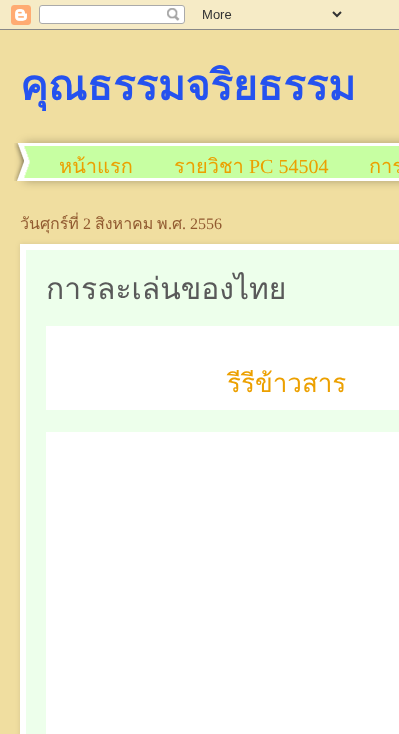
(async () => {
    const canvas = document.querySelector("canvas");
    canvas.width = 399;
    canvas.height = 734;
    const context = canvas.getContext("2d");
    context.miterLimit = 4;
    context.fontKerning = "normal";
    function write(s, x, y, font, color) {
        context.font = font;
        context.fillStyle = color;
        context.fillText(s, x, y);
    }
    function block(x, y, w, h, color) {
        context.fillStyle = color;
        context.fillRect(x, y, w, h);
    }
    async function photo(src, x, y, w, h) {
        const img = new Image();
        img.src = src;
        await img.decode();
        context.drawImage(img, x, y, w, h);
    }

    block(0, 0, 399, 734, "rgb(240, 222, 160)");
    await photo("media/1.png", 0, 0, 399, 30);
    write("คุณธรรมจริยธรรม", 20, 100, "bold 42px Loma", "rgb(37, 82, 239)");
    context.fillStyle = "rgba(0, 0, 0, 0.3)";
    context.filter = "blur(5px)";
    context.beginPath();
    context.rect(24, 143, 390, 38);
    context.fill();
    context.filter = "none";
    block(24, 146, 375, 32, "rgb(199, 255, 162)");
    block(24, 143, 375, 3, "rgb(255, 255, 255)");
    block(24, 178, 375, 3, "rgb(255, 255, 255)");
    await photo("media/2.png", 14, 143, 16, 38);
    write("หน้าแรก", 59, 173, "20px Loma", "rgb(236, 160, 0)");
    write("รายวิชา", 174, 173, "20px Loma", "rgb(236, 160, 0)");
    write("PC 54504", 249, 173, "20px Liberation Serif", "rgb(236, 160, 0)");
    write("การ", 369, 173, "20px Loma", "rgb(236, 160, 0)");
    write("วันศุกร์ที่", 20, 229, "16px Loma", "rgb(145, 90, 48)");
    write("2", 83, 229, "16px Liberation Serif", "rgb(145, 90, 48)");
    write("สิงหาคม", 95, 229, "16px Loma", "rgb(145, 90, 48)");
    write("พ", 157, 229, "16px Loma", "rgb(145, 90, 48)");
    write(".", 168, 229, "16px Liberation Serif", "rgb(145, 90, 48)");
    write("ศ", 172, 229, "16px Loma", "rgb(145, 90, 48)");
    write(". 2556", 182, 229, "16px Liberation Serif", "rgb(145, 90, 48)");
    context.fillStyle = "rgba(0, 0, 0, 0.1)";
    context.filter = "blur(2.5px)";
    context.beginPath();
    context.rect(20, 244, 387, 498);
    context.fill();
    context.filter = "none";
    context.fillStyle = "rgb(237, 255, 235)";
    context.beginPath();
    context.rect(23, 247, 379, 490);
    context.fill();
    context.strokeStyle = "rgb(255, 255, 255)";
    context.lineWidth = 6;
    context.stroke();
    write("การละเล่นของไทย", 46, 299, "30px Loma", "rgb(89, 89, 89)");
    block(46, 326, 353, 84, "rgb(255, 255, 255)");
    write("รีรีข้าวสาร", 227, 392, "26px Loma", "rgb(236, 160, 0)");
    block(46, 432, 353, 302, "rgb(255, 255, 255)");
})();
